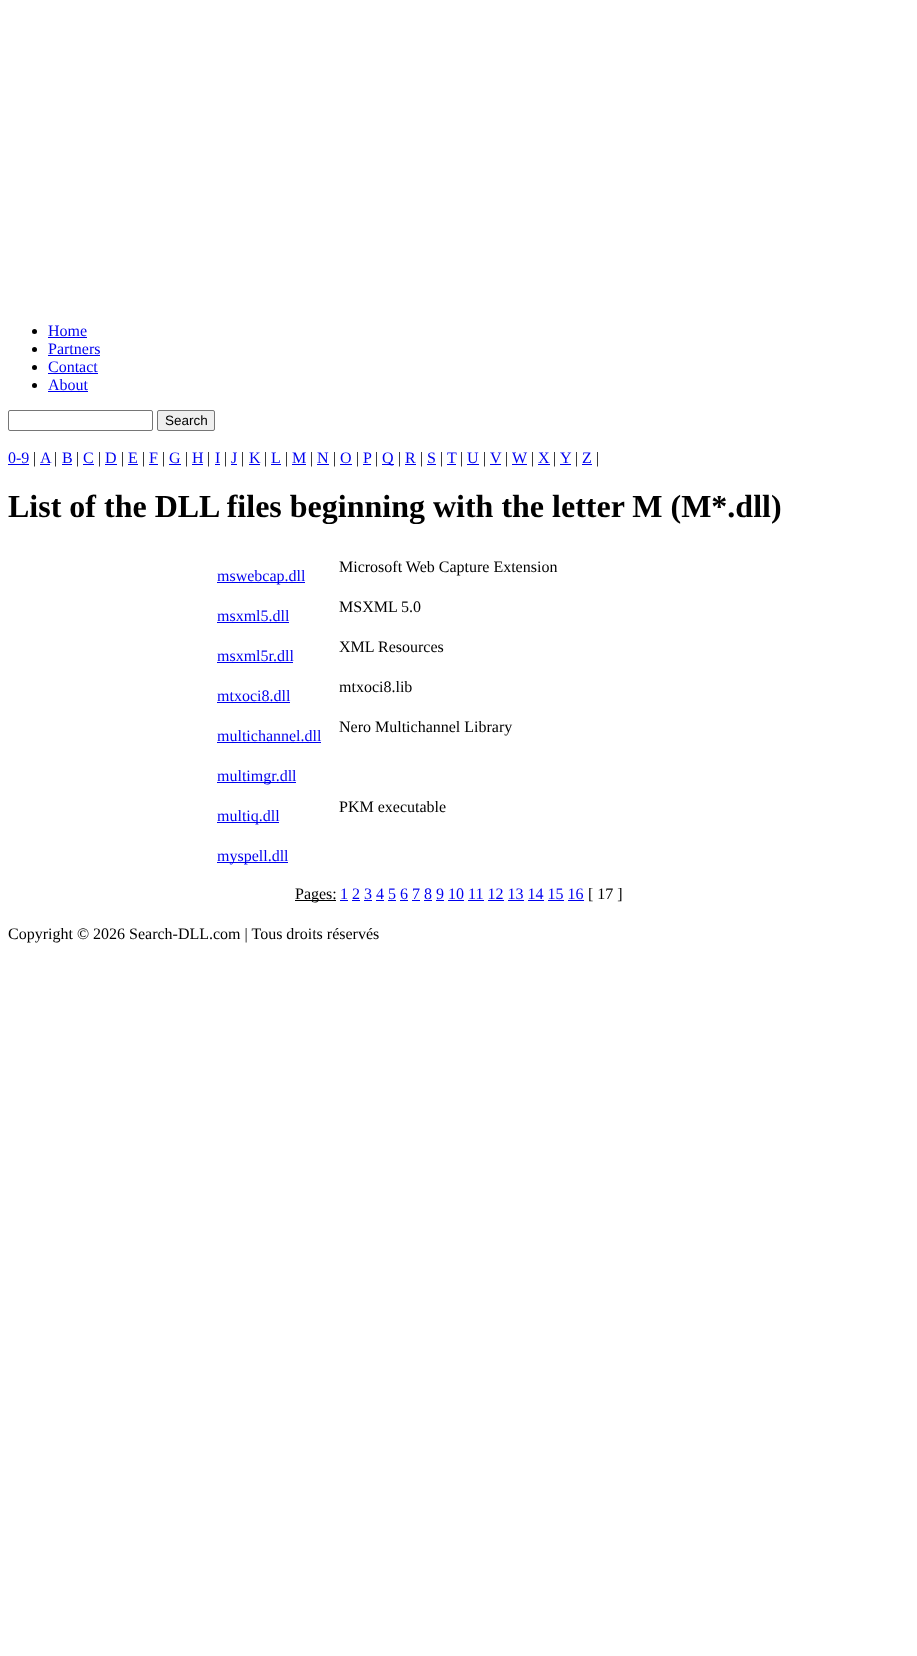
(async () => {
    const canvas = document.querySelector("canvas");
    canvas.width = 917;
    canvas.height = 1656;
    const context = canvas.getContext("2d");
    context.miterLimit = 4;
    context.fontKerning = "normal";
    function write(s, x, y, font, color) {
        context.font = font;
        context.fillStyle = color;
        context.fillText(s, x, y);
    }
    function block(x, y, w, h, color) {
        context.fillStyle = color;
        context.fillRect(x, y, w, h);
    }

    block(0, 0, 917, 1656, "rgb(255, 255, 255)");
    context.fillStyle = "rgb(0, 0, 0)";
    context.beginPath();
    context.arc(34.5, 331.5, 2.5, 0, Math.PI * 2);
    context.fill();
    write("Home", 48, 336, "16px Liberation Serif", "rgb(0, 0, 238)");
    block(48, 337, 39, 1, "rgb(0, 0, 238)");
    context.fillStyle = "rgb(0, 0, 0)";
    context.beginPath();
    context.arc(34.5, 349.5, 2.5, 0, Math.PI * 2);
    context.fill();
    write("Partners", 48, 354, "16px Liberation Serif", "rgb(0, 0, 238)");
    block(48, 355, 52, 1, "rgb(0, 0, 238)");
    context.fillStyle = "rgb(0, 0, 0)";
    context.beginPath();
    context.arc(34.5, 367.5, 2.5, 0, Math.PI * 2);
    context.fill();
    write("Contact", 48, 372, "16px Liberation Serif", "rgb(0, 0, 238)");
    block(48, 373, 50, 1, "rgb(0, 0, 238)");
    context.fillStyle = "rgb(0, 0, 0)";
    context.beginPath();
    context.arc(34.5, 385.5, 2.5, 0, Math.PI * 2);
    context.fill();
    write("About", 48, 390, "16px Liberation Serif", "rgb(0, 0, 238)");
    block(48, 391, 40, 1, "rgb(0, 0, 238)");
    context.beginPath();
    context.roundRect(8.5, 410.5, 144, 20, 1.5);
    context.strokeStyle = "rgb(118, 118, 118)";
    context.stroke();
    context.fillStyle = "rgb(239, 239, 239)";
    context.beginPath();
    context.roundRect(157.5, 410.5, 57, 20, 1.5);
    context.fill();
    context.stroke();
    write("Search", 165, 425, "13.5px Liberation Sans", "rgb(0, 0, 0)");
    write("0-9", 8, 463, "16px Liberation Serif", "rgb(0, 0, 238)");
    block(8, 464, 21, 1, "rgb(0, 0, 238)");
    write("|", 33, 463, "16px Liberation Serif", "rgb(0, 0, 0)");
    write("A", 40, 463, "16px Liberation Serif", "rgb(0, 0, 238)");
    block(40, 464, 10, 1, "rgb(0, 0, 238)");
    write("|", 54, 463, "16px Liberation Serif", "rgb(0, 0, 0)");
    write("B", 62, 463, "16px Liberation Serif", "rgb(0, 0, 238)");
    block(62, 464, 10, 1, "rgb(0, 0, 238)");
    write("|", 76, 463, "16px Liberation Serif", "rgb(0, 0, 0)");
    write("C", 83, 463, "16px Liberation Serif", "rgb(0, 0, 238)");
    block(83, 464, 11, 1, "rgb(0, 0, 238)");
    write("|", 98, 463, "16px Liberation Serif", "rgb(0, 0, 0)");
    write("D", 105, 463, "16px Liberation Serif", "rgb(0, 0, 238)");
    block(105, 464, 12, 1, "rgb(0, 0, 238)");
    write("|", 121, 463, "16px Liberation Serif", "rgb(0, 0, 0)");
    write("E", 128, 463, "16px Liberation Serif", "rgb(0, 0, 238)");
    block(128, 464, 10, 1, "rgb(0, 0, 238)");
    write("|", 142, 463, "16px Liberation Serif", "rgb(0, 0, 0)");
    write("F", 149, 463, "16px Liberation Serif", "rgb(0, 0, 238)");
    block(149, 464, 9, 1, "rgb(0, 0, 238)");
    write("|", 162, 463, "16px Liberation Serif", "rgb(0, 0, 0)");
    write("G", 169, 463, "16px Liberation Serif", "rgb(0, 0, 238)");
    block(169, 464, 12, 1, "rgb(0, 0, 238)");
    write("|", 185, 463, "16px Liberation Serif", "rgb(0, 0, 0)");
    write("H", 192, 463, "16px Liberation Serif", "rgb(0, 0, 238)");
    block(192, 464, 11, 1, "rgb(0, 0, 238)");
    write("|", 207, 463, "16px Liberation Serif", "rgb(0, 0, 0)");
    write("I", 215, 463, "16px Liberation Serif", "rgb(0, 0, 238)");
    block(215, 464, 5, 1, "rgb(0, 0, 238)");
    write("|", 224, 463, "16px Liberation Serif", "rgb(0, 0, 0)");
    write("J", 231, 463, "16px Liberation Serif", "rgb(0, 0, 238)");
    block(231, 464, 6, 1, "rgb(0, 0, 238)");
    write("|", 241, 463, "16px Liberation Serif", "rgb(0, 0, 0)");
    write("K", 249, 463, "16px Liberation Serif", "rgb(0, 0, 238)");
    block(249, 464, 11, 1, "rgb(0, 0, 238)");
    write("|", 264, 463, "16px Liberation Serif", "rgb(0, 0, 0)");
    write("L", 271, 463, "16px Liberation Serif", "rgb(0, 0, 238)");
    block(271, 464, 10, 1, "rgb(0, 0, 238)");
    write("|", 285, 463, "16px Liberation Serif", "rgb(0, 0, 0)");
    write("M", 292, 463, "16px Liberation Serif", "rgb(0, 0, 238)");
    block(292, 464, 14, 1, "rgb(0, 0, 238)");
    write("|", 310, 463, "16px Liberation Serif", "rgb(0, 0, 0)");
    write("N", 317, 463, "16px Liberation Serif", "rgb(0, 0, 238)");
    block(317, 464, 12, 1, "rgb(0, 0, 238)");
    write("|", 333, 463, "16px Liberation Serif", "rgb(0, 0, 0)");
    write("O", 340, 463, "16px Liberation Serif", "rgb(0, 0, 238)");
    block(340, 464, 12, 1, "rgb(0, 0, 238)");
    write("|", 356, 463, "16px Liberation Serif", "rgb(0, 0, 0)");
    write("P", 363, 463, "16px Liberation Serif", "rgb(0, 0, 238)");
    block(363, 464, 8, 1, "rgb(0, 0, 238)");
    write("|", 375, 463, "16px Liberation Serif", "rgb(0, 0, 0)");
    block(382, 464, 12, 1, "rgb(0, 0, 238)");
    write("Q", 382, 463, "16px Liberation Serif", "rgb(0, 0, 238)");
    write("|", 398, 463, "16px Liberation Serif", "rgb(0, 0, 0)");
    write("R", 405, 463, "16px Liberation Serif", "rgb(0, 0, 238)");
    block(405, 464, 11, 1, "rgb(0, 0, 238)");
    write("|", 420, 463, "16px Liberation Serif", "rgb(0, 0, 0)");
    write("S", 427, 463, "16px Liberation Serif", "rgb(0, 0, 238)");
    block(427, 464, 9, 1, "rgb(0, 0, 238)");
    write("|", 440, 463, "16px Liberation Serif", "rgb(0, 0, 0)");
    write("T", 447, 463, "16px Liberation Serif", "rgb(0, 0, 238)");
    block(447, 464, 9, 1, "rgb(0, 0, 238)");
    write("|", 460, 463, "16px Liberation Serif", "rgb(0, 0, 0)");
    write("U", 467, 463, "16px Liberation Serif", "rgb(0, 0, 238)");
    block(467, 464, 12, 1, "rgb(0, 0, 238)");
    write("|", 483, 463, "16px Liberation Serif", "rgb(0, 0, 0)");
    write("V", 490, 463, "16px Liberation Serif", "rgb(0, 0, 238)");
    block(490, 464, 11, 1, "rgb(0, 0, 238)");
    write("|", 505, 463, "16px Liberation Serif", "rgb(0, 0, 0)");
    write("W", 512, 463, "16px Liberation Serif", "rgb(0, 0, 238)");
    block(512, 464, 15, 1, "rgb(0, 0, 238)");
    write("|", 531, 463, "16px Liberation Serif", "rgb(0, 0, 0)");
    write("X", 538, 463, "16px Liberation Serif", "rgb(0, 0, 238)");
    block(538, 464, 12, 1, "rgb(0, 0, 238)");
    write("|", 553, 463, "16px Liberation Serif", "rgb(0, 0, 0)");
    write("Y", 560, 463, "16px Liberation Serif", "rgb(0, 0, 238)");
    block(560, 464, 11, 1, "rgb(0, 0, 238)");
    write("|", 575, 463, "16px Liberation Serif", "rgb(0, 0, 0)");
    write("Z", 582, 463, "16px Liberation Serif", "rgb(0, 0, 238)");
    block(582, 464, 10, 1, "rgb(0, 0, 238)");
    write("|", 596, 463, "16px Liberation Serif", "rgb(0, 0, 0)");
    write("List of the DLL files beginning with the letter M (M*.dll)", 8, 517, "bold 32px Liberation Serif", "rgb(0, 0, 0)");
    block(217, 582, 88, 1, "rgb(0, 0, 238)");
    write("mswebcap.dll", 217, 581, "16px Liberation Serif", "rgb(0, 0, 238)");
    write("Microsoft Web Capture Extension", 339, 572, "16px Liberation Serif", "rgb(0, 0, 0)");
    write("MSXML 5.0", 339, 612, "16px Liberation Serif", "rgb(0, 0, 0)");
    write("msxml5.dll", 217, 621, "16px Liberation Serif", "rgb(0, 0, 238)");
    block(217, 622, 72, 1, "rgb(0, 0, 238)");
    write("XML Resources", 339, 652, "16px Liberation Serif", "rgb(0, 0, 0)");
    write("msxml5r.dll", 217, 661, "16px Liberation Serif", "rgb(0, 0, 238)");
    block(217, 662, 76, 1, "rgb(0, 0, 238)");
    write("mtxoci8.lib", 339, 692, "16px Liberation Serif", "rgb(0, 0, 0)");
    write("mtxoci8.dll", 217, 701, "16px Liberation Serif", "rgb(0, 0, 238)");
    block(217, 702, 73, 1, "rgb(0, 0, 238)");
    write("multichannel.dll", 217, 741, "16px Liberation Serif", "rgb(0, 0, 238)");
    block(217, 742, 104, 1, "rgb(0, 0, 238)");
    write("Nero Multichannel Library", 339, 732, "16px Liberation Serif", "rgb(0, 0, 0)");
    block(217, 782, 79, 1, "rgb(0, 0, 238)");
    write("multimgr.dll", 217, 781, "16px Liberation Serif", "rgb(0, 0, 238)");
    write("PKM executable", 339, 812, "16px Liberation Serif", "rgb(0, 0, 0)");
    block(217, 822, 62, 1, "rgb(0, 0, 238)");
    write("multiq.dll", 217, 821, "16px Liberation Serif", "rgb(0, 0, 238)");
    block(217, 862, 71, 1, "rgb(0, 0, 238)");
    write("myspell.dll", 217, 861, "16px Liberation Serif", "rgb(0, 0, 238)");
    block(295, 900, 41, 1, "rgb(0, 0, 0)");
    write("Pages:", 295, 899, "16px Liberation Serif", "rgb(0, 0, 0)");
    write("1 2 3 4 5 6 7 8 9 10 11 12 13 14 15 16", 340, 899, "16px Liberation Serif", "rgb(0, 0, 238)");
    block(340, 900, 8, 1, "rgb(0, 0, 238)");
    write("[ 17 ]", 588, 899, "16px Liberation Serif", "rgb(0, 0, 0)");
    block(352, 900, 8, 1, "rgb(0, 0, 238)");
    block(364, 900, 8, 1, "rgb(0, 0, 238)");
    block(376, 900, 8, 1, "rgb(0, 0, 238)");
    block(388, 900, 8, 1, "rgb(0, 0, 238)");
    block(400, 900, 8, 1, "rgb(0, 0, 238)");
    block(412, 900, 8, 1, "rgb(0, 0, 238)");
    block(424, 900, 8, 1, "rgb(0, 0, 238)");
    block(436, 900, 8, 1, "rgb(0, 0, 238)");
    block(448, 900, 16, 1, "rgb(0, 0, 238)");
    block(468, 900, 16, 1, "rgb(0, 0, 238)");
    block(488, 900, 16, 1, "rgb(0, 0, 238)");
    block(508, 900, 16, 1, "rgb(0, 0, 238)");
    block(528, 900, 16, 1, "rgb(0, 0, 238)");
    block(548, 900, 16, 1, "rgb(0, 0, 238)");
    block(568, 900, 16, 1, "rgb(0, 0, 238)");
    write("Copyright © 2026 Search-DLL.com | Tous droits réservés", 8, 939, "16px Liberation Serif", "rgb(0, 0, 0)");
})();
